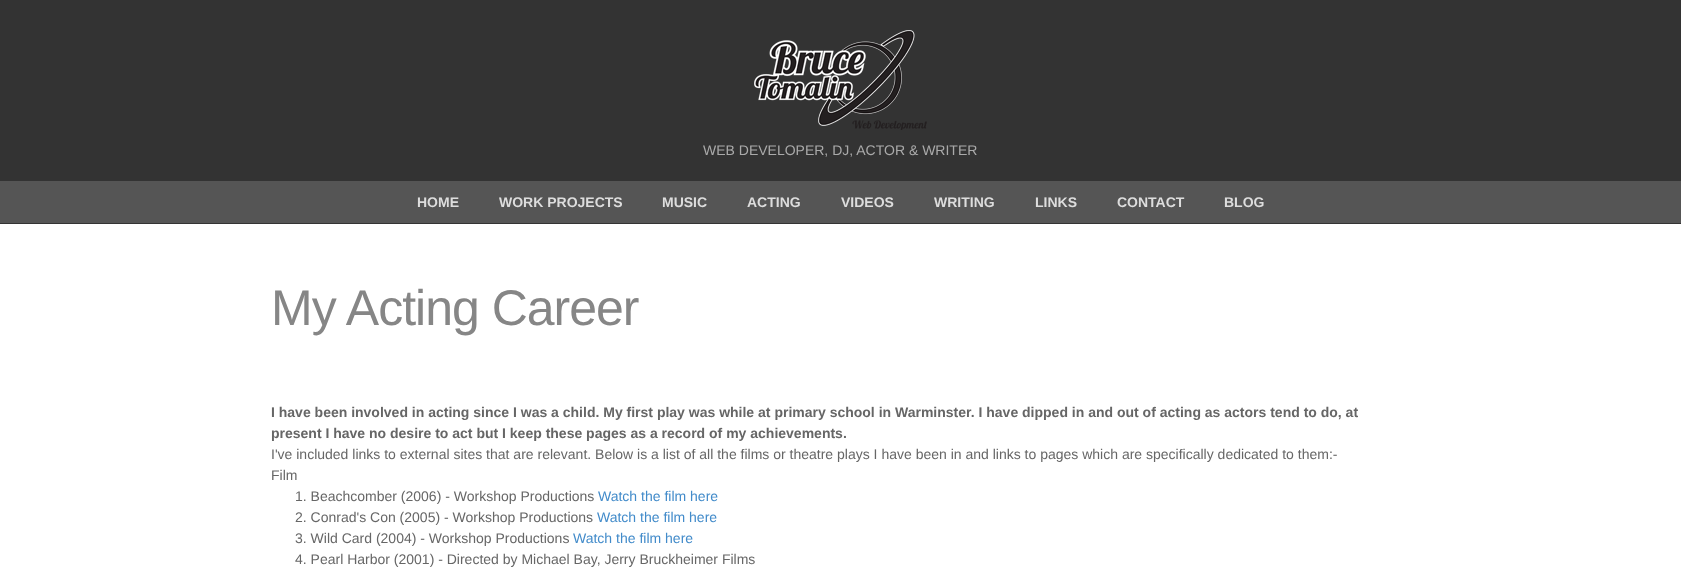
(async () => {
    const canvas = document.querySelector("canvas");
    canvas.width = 1681;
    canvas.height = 569;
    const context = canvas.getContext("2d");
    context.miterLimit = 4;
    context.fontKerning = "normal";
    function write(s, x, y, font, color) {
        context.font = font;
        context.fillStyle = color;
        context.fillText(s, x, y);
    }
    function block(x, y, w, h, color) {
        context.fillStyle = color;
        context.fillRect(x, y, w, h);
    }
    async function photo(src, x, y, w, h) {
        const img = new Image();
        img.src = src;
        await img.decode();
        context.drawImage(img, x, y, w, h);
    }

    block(0, 0, 1681, 569, "rgb(255, 255, 255)");
    block(0, 0, 1681, 224, "rgb(51, 51, 51)");
    await photo("media/1.png", 754, 30, 173, 100);
    write("WEB DEVELOPER, DJ, ACTOR & WRITER", 703, 155, "14px Liberation Sans", "rgb(170, 170, 170)");
    block(0, 181, 1681, 42, "rgb(85, 85, 85)");
    write("HOME", 417, 207, "bold 14px Liberation Sans", "rgb(221, 221, 221)");
    write("WORK PROJECTS", 499, 207, "bold 14px Liberation Sans", "rgb(221, 221, 221)");
    write("MUSIC", 662, 207, "bold 14px Liberation Sans", "rgb(221, 221, 221)");
    write("ACTING", 747, 207, "bold 14px Liberation Sans", "rgb(221, 221, 221)");
    write("VIDEOS", 841, 207, "bold 14px Liberation Sans", "rgb(221, 221, 221)");
    write("WRITING", 934, 207, "bold 14px Liberation Sans", "rgb(221, 221, 221)");
    write("LINKS", 1035, 207, "bold 14px Liberation Sans", "rgb(221, 221, 221)");
    write("CONTACT", 1117, 207, "bold 14px Liberation Sans", "rgb(221, 221, 221)");
    write("BLOG", 1224, 207, "bold 14px Liberation Sans", "rgb(221, 221, 221)");
    context.letterSpacing = "-1px";
    write("My Acting Career", 271, 325, "50px Liberation Sans", "rgb(134, 134, 134)");
    context.letterSpacing = "0px";
    write("I have been involved in acting since I was a child. My first play was while at primary school in Warminster. I have dipped in and out of acting as actors tend to do, at", 271, 417, "bold 14px Liberation Sans", "rgb(102, 102, 102)");
    write("present I have no desire to act but I keep these pages as a record of my achievements.", 271, 438, "bold 14px Liberation Sans", "rgb(102, 102, 102)");
    write("I've included links to external sites that are relevant. Below is a list of all the films or theatre plays I have been in and links to pages which are specifically dedicated to them:-", 271, 459, "14px Liberation Sans", "rgb(102, 102, 102)");
    write("Film", 271, 480, "14px Liberation Sans", "rgb(102, 102, 102)");
    write("1. Beachcomber (2006) - Workshop Productions", 295, 501, "14px Liberation Sans", "rgb(102, 102, 102)");
    write("Watch the film here", 598, 501, "14px Liberation Sans", "rgb(66, 139, 202)");
    write("2. Conrad's Con (2005) - Workshop Productions", 295, 522, "14px Liberation Sans", "rgb(102, 102, 102)");
    write("Watch the film here", 597, 522, "14px Liberation Sans", "rgb(66, 139, 202)");
    write("3. Wild Card (2004) - Workshop Productions", 295, 543, "14px Liberation Sans", "rgb(102, 102, 102)");
    write("Watch the film here", 573, 543, "14px Liberation Sans", "rgb(66, 139, 202)");
    write("4. Pearl Harbor (2001) - Directed by Michael Bay, Jerry Bruckheimer Films", 295, 564, "14px Liberation Sans", "rgb(102, 102, 102)");
})();
